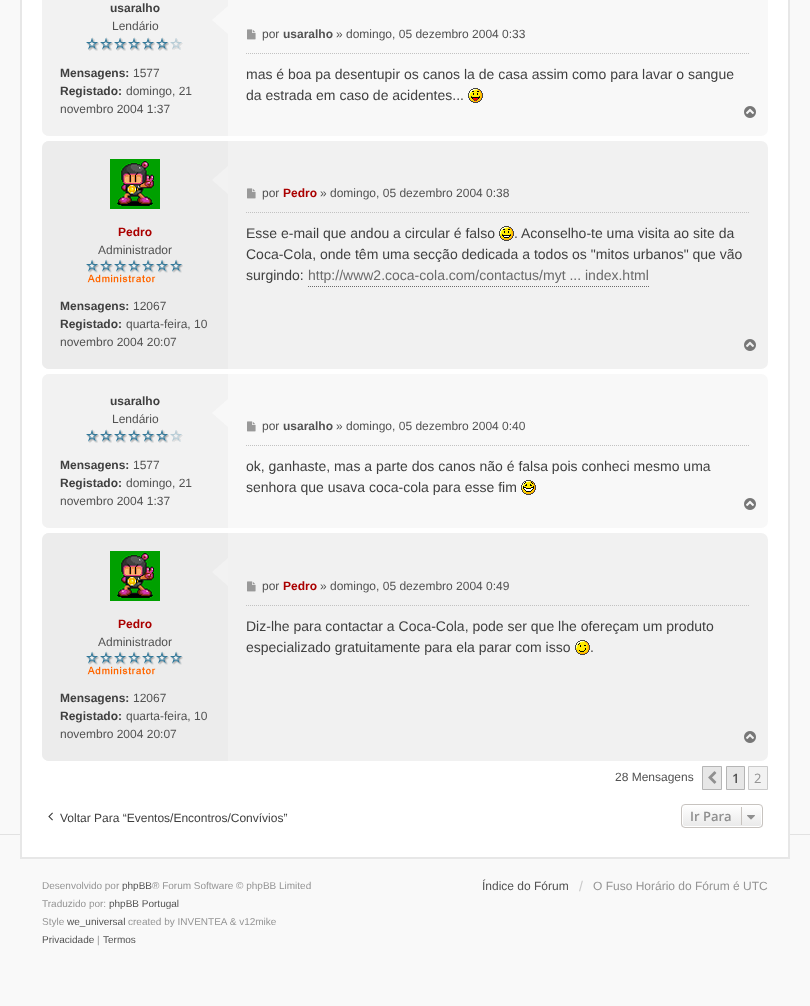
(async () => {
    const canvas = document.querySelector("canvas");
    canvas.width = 810;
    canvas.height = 1006;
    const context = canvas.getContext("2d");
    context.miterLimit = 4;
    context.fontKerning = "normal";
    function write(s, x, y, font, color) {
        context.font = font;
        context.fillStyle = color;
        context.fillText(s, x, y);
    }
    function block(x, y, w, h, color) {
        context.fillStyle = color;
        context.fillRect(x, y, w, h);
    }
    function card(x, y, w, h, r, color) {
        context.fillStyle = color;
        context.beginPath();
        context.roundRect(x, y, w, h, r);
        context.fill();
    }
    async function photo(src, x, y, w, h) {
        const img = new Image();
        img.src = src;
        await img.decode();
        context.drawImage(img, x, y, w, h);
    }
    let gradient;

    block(0, 0, 810, 1006, "rgb(249, 249, 249)");
    block(0, 834, 810, 1, "rgb(226, 226, 226)");
    block(22, 0, 766, 857, "rgb(255, 255, 255)");
    block(788, 0, 2, 859, "rgb(231, 231, 231)");
    block(20, 857, 770, 2, "rgb(231, 231, 231)");
    block(20, 0, 2, 859, "rgb(231, 231, 231)");
    card(42, -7, 726, 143, 7, "rgb(248, 248, 248)");
    context.fillStyle = "rgb(242, 242, 242)";
    context.beginPath();
    context.moveTo(49, -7);
    context.lineTo(228, -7);
    context.lineTo(228, 136);
    context.lineTo(49, 136);
    context.bezierCurveTo(45, 136, 42, 133, 42, 129);
    context.lineTo(42, 0);
    context.bezierCurveTo(42, -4, 45, -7, 49, -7);
    context.closePath();
    context.fill();
    write("usaralho", 110, 12, "bold 12px Liberation Sans", "rgb(63, 63, 63)");
    write("Lendário", 112, 30, "12px Liberation Sans", "rgb(82, 82, 82)");
    await photo("media/1.png", 86, 37, 97, 14);
    write("Mensagens:", 60, 77, "bold 12px Liberation Sans", "rgb(63, 63, 63)");
    write("1577", 133, 77, "12px Liberation Sans", "rgb(82, 82, 82)");
    write("Registado:", 60, 95, "bold 12px Liberation Sans", "rgb(63, 63, 63)");
    write("domingo, 21", 126, 95, "12px Liberation Sans", "rgb(82, 82, 82)");
    write("novembro 2004 1:37", 60, 113, "12px Liberation Sans", "rgb(82, 82, 82)");
    context.fillStyle = "rgb(248, 248, 248)";
    context.beginPath();
    context.moveTo(228, 6);
    context.lineTo(228, 34);
    context.lineTo(212, 20);
    context.closePath();
    context.fill();
    context.beginPath();
    context.moveTo(246, 53.5);
    context.lineTo(750, 53.5);
    context.strokeStyle = "rgb(194, 194, 194)";
    context.setLineDash([1, 1]);
    context.stroke();
    await photo("media/2.png", 247, 29, 9, 11);
    write("por", 262, 38, "12px Liberation Sans", "rgb(82, 82, 82)");
    write("usaralho", 283, 38, "bold 12px Liberation Sans", "rgb(82, 82, 82)");
    write("» domingo, 05 dezembro 2004 0:33", 336, 38, "12px Liberation Sans", "rgb(82, 82, 82)");
    write("mas é boa pa desentupir os canos la de casa assim como para lavar o sangue", 246, 79, "14px Liberation Sans", "rgb(63, 63, 63)");
    write("da estrada em caso de acidentes...", 246, 100, "14px Liberation Sans", "rgb(63, 63, 63)");
    await photo("media/3.png", 468, 88, 15, 15);
    await photo("media/4.png", 744, 106, 12, 12);
    card(42, 141, 726, 228, 7, "rgb(241, 241, 241)");
    context.fillStyle = "rgb(236, 236, 236)";
    context.beginPath();
    context.roundRect(42, 141, 186, 228, [7, 0, 0, 7]);
    context.fill();
    await photo("media/5.png", 110, 159, 50, 50);
    write("Pedro", 118, 236, "bold 12px Liberation Sans", "rgb(170, 0, 0)");
    write("Administrador", 98, 254, "12px Liberation Sans", "rgb(82, 82, 82)");
    await photo("media/6.png", 86, 259, 97, 24);
    write("Mensagens:", 60, 310, "bold 12px Liberation Sans", "rgb(63, 63, 63)");
    write("12067", 133, 310, "12px Liberation Sans", "rgb(82, 82, 82)");
    write("Registado:", 60, 328, "bold 12px Liberation Sans", "rgb(63, 63, 63)");
    write("quarta-feira, 10", 126, 328, "12px Liberation Sans", "rgb(82, 82, 82)");
    write("novembro 2004 20:07", 60, 346, "12px Liberation Sans", "rgb(82, 82, 82)");
    context.fillStyle = "rgb(242, 242, 242)";
    context.beginPath();
    context.moveTo(228, 166);
    context.lineTo(228, 194);
    context.lineTo(212, 180);
    context.closePath();
    context.fill();
    context.beginPath();
    context.moveTo(246, 212.5);
    context.lineTo(750, 212.5);
    context.stroke();
    await photo("media/7.png", 247, 188, 9, 11);
    write("por", 262, 197, "12px Liberation Sans", "rgb(82, 82, 82)");
    write("Pedro", 283, 197, "bold 12px Liberation Sans", "rgb(170, 0, 0)");
    write("» domingo, 05 dezembro 2004 0:38", 320, 197, "12px Liberation Sans", "rgb(82, 82, 82)");
    write("Esse e-mail que andou a circular é falso", 246, 238, "14px Liberation Sans", "rgb(63, 63, 63)");
    await photo("media/8.png", 499, 226, 15, 15);
    write(". Aconselho-te uma visita ao site da", 514, 238, "14px Liberation Sans", "rgb(63, 63, 63)");
    write("Coca-Cola, onde têm uma secção dedicada a todos os \"mitos urbanos\" que vão", 246, 259, "14px Liberation Sans", "rgb(63, 63, 63)");
    write("surgindo:", 246, 280, "14px Liberation Sans", "rgb(63, 63, 63)");
    context.beginPath();
    context.moveTo(308, 286.5);
    context.lineTo(649, 286.5);
    context.strokeStyle = "rgb(107, 107, 107)";
    context.stroke();
    write("http://www2.coca-cola.com/contactus/myt ... index.html", 308, 280, "14px Liberation Sans", "rgb(107, 107, 107)");
    await photo("media/9.png", 744, 339, 12, 12);
    card(42, 374, 726, 154, 7, "rgb(248, 248, 248)");
    context.fillStyle = "rgb(242, 242, 242)";
    context.beginPath();
    context.roundRect(42, 374, 186, 154, [7, 0, 0, 7]);
    context.fill();
    write("usaralho", 110, 405, "bold 12px Liberation Sans", "rgb(63, 63, 63)");
    write("Lendário", 112, 423, "12px Liberation Sans", "rgb(82, 82, 82)");
    await photo("media/1.png", 86, 429, 97, 14);
    write("Mensagens:", 60, 469, "bold 12px Liberation Sans", "rgb(63, 63, 63)");
    write("1577", 133, 469, "12px Liberation Sans", "rgb(82, 82, 82)");
    write("Registado:", 60, 487, "bold 12px Liberation Sans", "rgb(63, 63, 63)");
    write("domingo, 21", 126, 487, "12px Liberation Sans", "rgb(82, 82, 82)");
    write("novembro 2004 1:37", 60, 505, "12px Liberation Sans", "rgb(82, 82, 82)");
    context.fillStyle = "rgb(248, 248, 248)";
    context.beginPath();
    context.moveTo(228, 399);
    context.lineTo(228, 427);
    context.lineTo(212, 413);
    context.closePath();
    context.fill();
    context.beginPath();
    context.moveTo(246, 445.5);
    context.lineTo(750, 445.5);
    context.strokeStyle = "rgb(194, 194, 194)";
    context.stroke();
    await photo("media/2.png", 247, 421, 9, 11);
    write("por", 262, 430, "12px Liberation Sans", "rgb(82, 82, 82)");
    write("usaralho", 283, 430, "bold 12px Liberation Sans", "rgb(82, 82, 82)");
    write("» domingo, 05 dezembro 2004 0:40", 336, 430, "12px Liberation Sans", "rgb(82, 82, 82)");
    write("ok, ganhaste, mas a parte dos canos não é falsa pois conheci mesmo uma", 246, 471, "14px Liberation Sans", "rgb(63, 63, 63)");
    write("senhora que usava coca-cola para esse fim", 246, 492, "14px Liberation Sans", "rgb(63, 63, 63)");
    await photo("media/10.png", 521, 480, 15, 15);
    await photo("media/4.png", 744, 498, 12, 12);
    card(42, 533, 726, 228, 7, "rgb(241, 241, 241)");
    context.fillStyle = "rgb(236, 236, 236)";
    context.beginPath();
    context.roundRect(42, 533, 186, 228, [7, 0, 0, 7]);
    context.fill();
    await photo("media/5.png", 110, 551, 50, 50);
    write("Pedro", 118, 628, "bold 12px Liberation Sans", "rgb(170, 0, 0)");
    write("Administrador", 98, 646, "12px Liberation Sans", "rgb(82, 82, 82)");
    await photo("media/6.png", 86, 651, 97, 24);
    write("Mensagens:", 60, 702, "bold 12px Liberation Sans", "rgb(63, 63, 63)");
    write("12067", 133, 702, "12px Liberation Sans", "rgb(82, 82, 82)");
    write("Registado:", 60, 720, "bold 12px Liberation Sans", "rgb(63, 63, 63)");
    write("quarta-feira, 10", 126, 720, "12px Liberation Sans", "rgb(82, 82, 82)");
    write("novembro 2004 20:07", 60, 738, "12px Liberation Sans", "rgb(82, 82, 82)");
    context.fillStyle = "rgb(242, 242, 242)";
    context.beginPath();
    context.moveTo(228, 558);
    context.lineTo(228, 586);
    context.lineTo(212, 572);
    context.closePath();
    context.fill();
    context.beginPath();
    context.moveTo(246, 605.5);
    context.lineTo(750, 605.5);
    context.stroke();
    await photo("media/7.png", 247, 581, 9, 11);
    write("por", 262, 590, "12px Liberation Sans", "rgb(82, 82, 82)");
    write("Pedro", 283, 590, "bold 12px Liberation Sans", "rgb(170, 0, 0)");
    write("» domingo, 05 dezembro 2004 0:49", 320, 590, "12px Liberation Sans", "rgb(82, 82, 82)");
    write("Diz-lhe para contactar a Coca-Cola, pode ser que lhe ofereçam um produto", 246, 631, "14px Liberation Sans", "rgb(63, 63, 63)");
    write("especializado gratuitamente para ela parar com isso", 246, 652, "14px Liberation Sans", "rgb(63, 63, 63)");
    await photo("media/11.png", 575, 640, 15, 15);
    write(".", 590, 652, "14px Liberation Sans", "rgb(63, 63, 63)");
    await photo("media/9.png", 744, 731, 12, 12);
    write("28 Mensagens", 615, 781, "12px Liberation Sans", "rgb(82, 82, 82)");
    context.fillStyle = "rgb(231, 231, 231)";
    context.beginPath();
    context.rect(702.5, 766.5, 19, 23);
    context.fill();
    context.strokeStyle = "rgb(181, 181, 181)";
    context.setLineDash([]);
    context.stroke();
    await photo("media/12.png", 708, 771, 9, 13);
    context.beginPath();
    context.rect(726.5, 766.5, 18, 23);
    context.fill();
    context.stroke();
    write("1", 732, 783, "600 13px Open Sans", "rgb(82, 82, 82)");
    context.fillStyle = "rgb(242, 242, 242)";
    context.beginPath();
    context.rect(748.5, 766.5, 19, 23);
    context.fill();
    context.strokeStyle = "rgb(202, 202, 202)";
    context.stroke();
    write("2", 754, 783, "13px Open Sans", "rgb(149, 149, 149)");
    await photo("media/13.png", 48, 812, 5, 9);
    write("Voltar Para “Eventos/Encontros/Convívios”", 60, 822, "12px Liberation Sans", "rgb(63, 63, 63)");
    context.save();
    context.beginPath();
    context.roundRect(681, 804, 82, 24, 4);
    context.clip();
    gradient = context.createLinearGradient(722, 805, 722, 827);
    gradient.addColorStop(0, "rgb(255, 255, 255)");
    gradient.addColorStop(1, "rgb(233, 233, 233)");
    context.fillStyle = gradient;
    context.fillRect(681, 805, 82, 22);
    context.restore();
    context.beginPath();
    context.roundRect(682.5, 805.5, 79, 21, 2.5);
    context.strokeStyle = "rgb(255, 255, 255)";
    context.stroke();
    context.beginPath();
    context.roundRect(681.5, 804.5, 81, 23, 3.5);
    context.strokeStyle = "rgb(199, 195, 191)";
    context.stroke();
    write("Ir Para", 690, 821, "600 13px Open Sans", "rgb(143, 143, 143)");
    block(741, 807, 1, 18, "rgb(199, 195, 191)");
    await photo("media/14.png", 747, 815, 8, 5);
    write("Desenvolvido por", 42, 889, "10px Liberation Sans", "rgb(149, 149, 149)");
    write("phpBB", 122, 889, "10px Liberation Sans", "rgb(82, 82, 82)");
    write("® Forum Software © phpBB Limited", 152, 889, "10px Liberation Sans", "rgb(149, 149, 149)");
    write("Traduzido por:", 42, 907, "10px Liberation Sans", "rgb(149, 149, 149)");
    write("phpBB Portugal", 109, 907, "10px Liberation Sans", "rgb(82, 82, 82)");
    write("Style", 42, 925, "10px Liberation Sans", "rgb(149, 149, 149)");
    write("we_universal", 67, 925, "10px Liberation Sans", "rgb(82, 82, 82)");
    write("created by INVENTEA & v12mike", 128, 925, "10px Liberation Sans", "rgb(149, 149, 149)");
    write("Privacidade", 42, 943, "10px Liberation Sans", "rgb(82, 82, 82)");
    write("|", 97, 943, "10px Liberation Sans", "rgb(149, 149, 149)");
    write("Termos", 103, 943, "10px Liberation Sans", "rgb(82, 82, 82)");
    write("Índice do Fórum", 482, 890, "12px Liberation Sans", "rgb(82, 82, 82)");
    write("/", 579, 891, "14px Liberation Sans", "rgb(202, 202, 202)");
    write("O Fuso Horário do Fórum é UTC", 593, 890, "12px Liberation Sans", "rgb(149, 149, 149)");
})();
